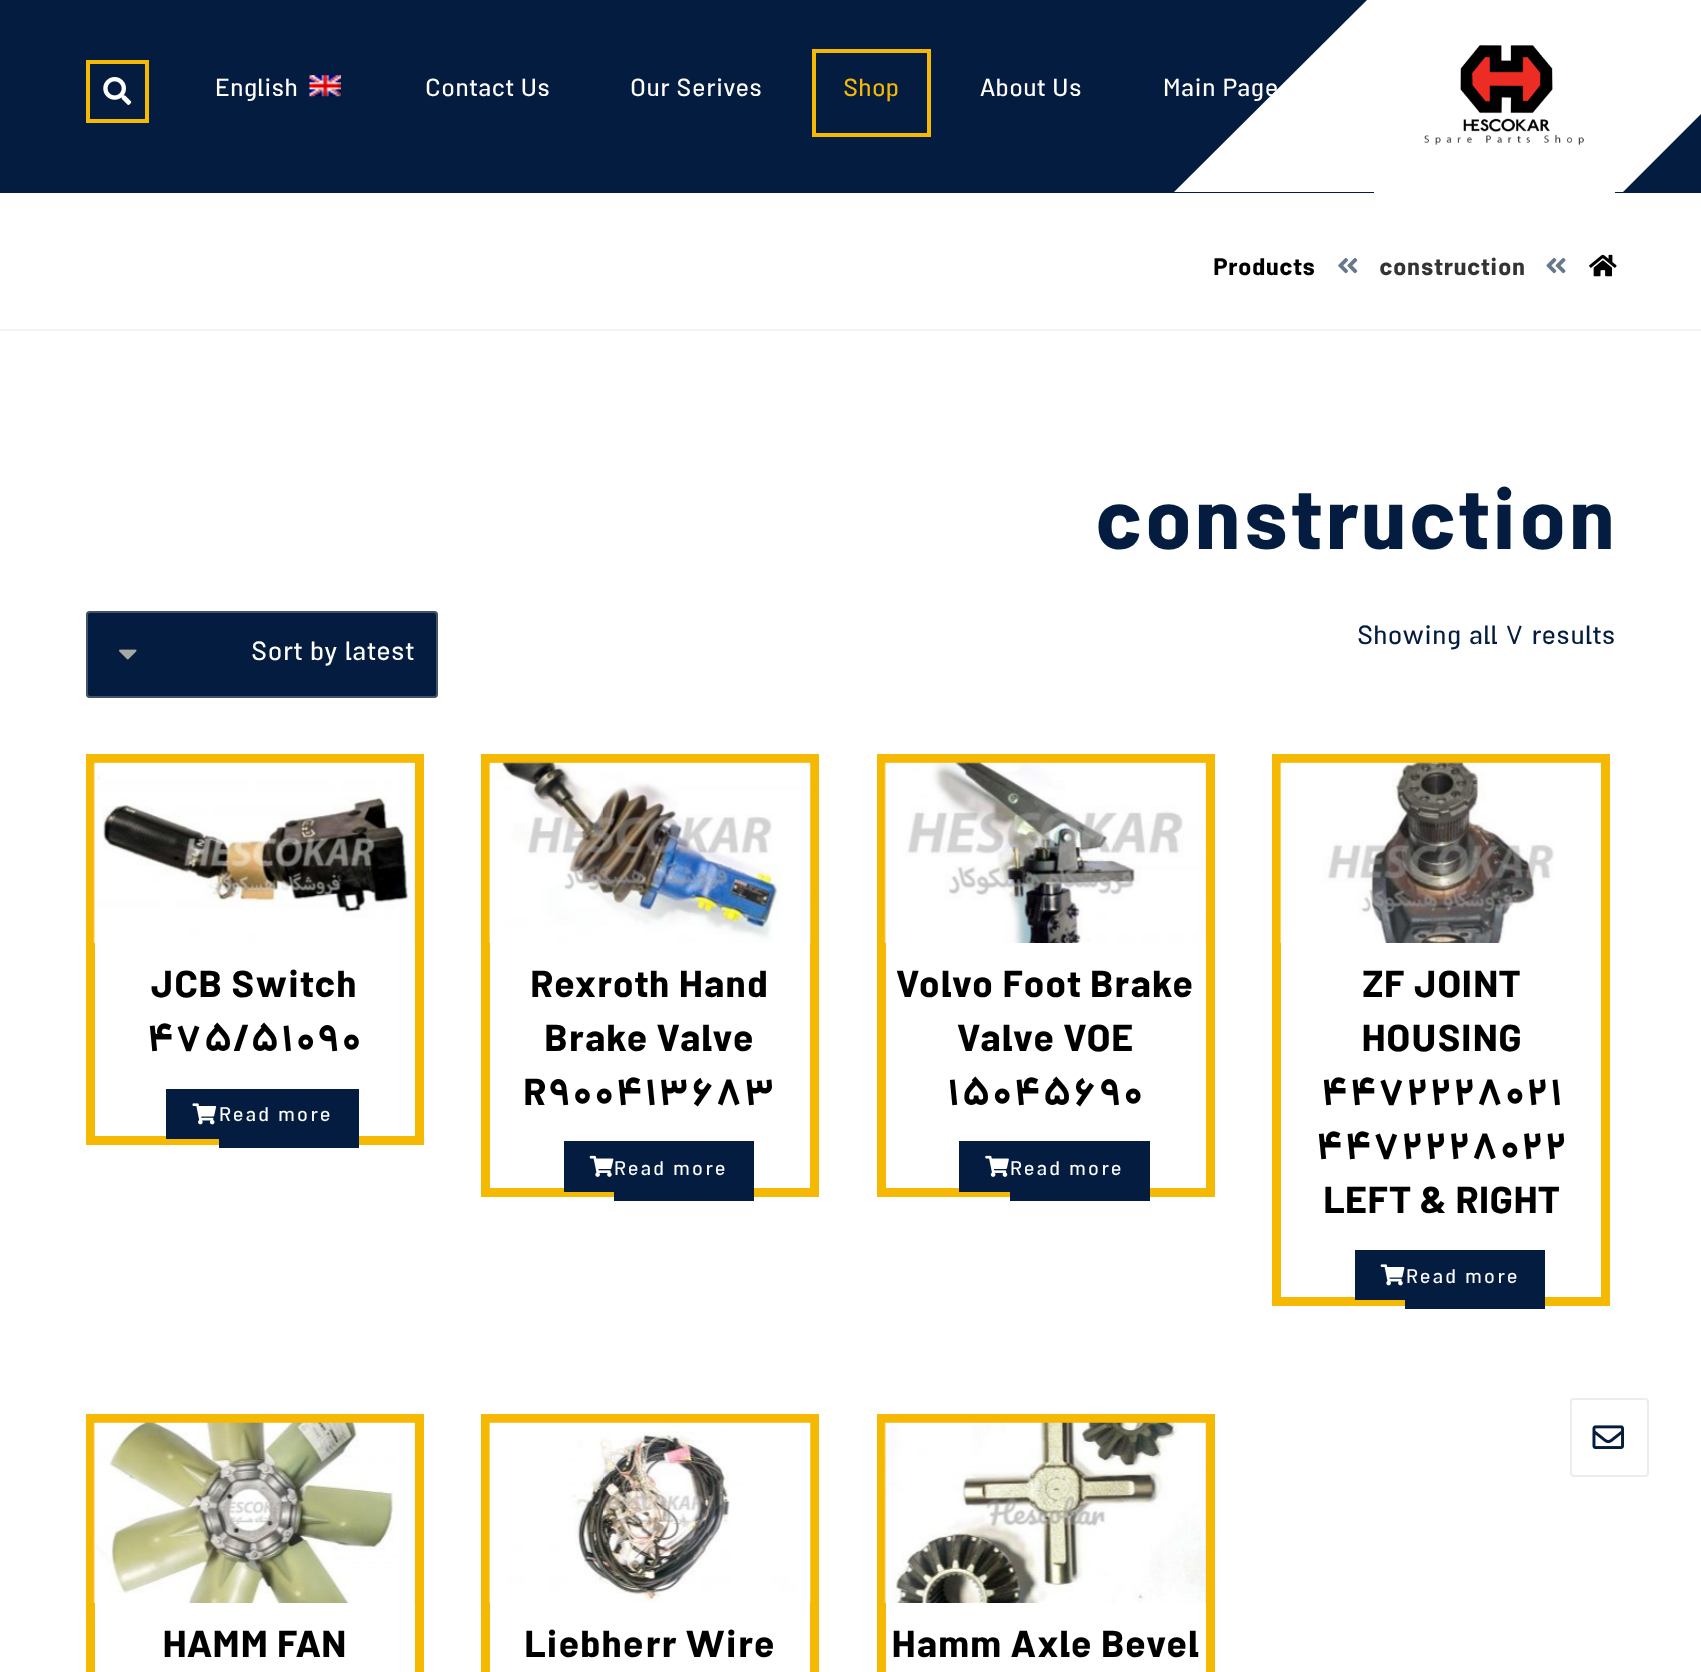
(async () => {
    const canvas = document.querySelector("canvas");
    canvas.width = 1701;
    canvas.height = 1672;
    const context = canvas.getContext("2d");
    context.miterLimit = 4;
    context.fontKerning = "normal";
    function write(s, x, y, font, color) {
        context.font = font;
        context.fillStyle = color;
        context.fillText(s, x, y);
    }
    function block(x, y, w, h, color) {
        context.fillStyle = color;
        context.fillRect(x, y, w, h);
    }
    function card(x, y, w, h, r, color) {
        context.fillStyle = color;
        context.beginPath();
        context.roundRect(x, y, w, h, r);
        context.fill();
    }
    async function photo(src, x, y, w, h) {
        const img = new Image();
        img.src = src;
        await img.decode();
        context.drawImage(img, x, y, w, h);
    }

    block(0, 0, 1701, 1672, "rgb(255, 255, 255)");
    block(0, 0, 1701, 193, "rgb(4, 28, 63)");
    context.strokeStyle = "rgb(245, 185, 4)";
    context.lineWidth = 4;
    context.strokeRect(88, 62, 59, 59);
    await photo("media/1.png", 103, 77, 29, 28);
    write("English", 215, 96, "26.25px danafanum", "rgb(255, 255, 255)");
    await photo("media/2.png", 309, 75, 32, 22);
    write("Contact Us", 425, 96, "26.25px danafanum", "rgb(255, 255, 255)");
    write("Our Serives", 630, 96, "26.25px danafanum", "rgb(255, 255, 255)");
    context.strokeRect(814, 51, 115, 84);
    write("Shop", 843, 96, "26.25px danafanum", "rgb(245, 185, 4)");
    write("About Us", 980, 96, "26.25px danafanum", "rgb(255, 255, 255)");
    context.beginPath();
    context.moveTo(1367, 0);
    context.lineTo(1624, 0);
    context.lineTo(1431, 192);
    context.lineTo(1174, 192);
    context.closePath();
    context.fill();
    write("Main Page", 1163, 96, "26.25px danafanum", "rgb(255, 255, 255)");
    block(1374, 192, 241, 1, "rgb(255, 255, 255)");
    context.beginPath();
    context.moveTo(1558, 0);
    context.lineTo(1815, 0);
    context.lineTo(1623, 192);
    context.lineTo(1365, 192);
    context.closePath();
    context.fill();
    await photo("media/3.png", 1424, 45, 160, 100);
    block(0, 329, 1701, 2, "rgb(244, 244, 244)");
    write("Products", 1213, 275, "bold 24.5px danafanum", "rgb(0, 0, 0)");
    await photo("media/4.png", 1338, 258, 20, 16);
    write("construction", 1379, 275, "bold 24.5px danafanum", "rgb(51, 51, 51)");
    await photo("media/5.png", 1546, 257, 20, 17);
    await photo("media/6.png", 1589, 254, 28, 23);
    write("construction", 1094, 549, "bold 87.5px danafanum", "rgb(4, 28, 63)");
    write("Showing all 7 results", 1357, 644, "28px danafanum", "rgb(4, 28, 63)");
    card(86, 611, 352, 87, 4, "rgb(4, 28, 63)");
    await photo("media/7.png", 119, 649, 18, 11);
    context.beginPath();
    context.roundRect(87, 612, 350, 85, 3);
    context.strokeStyle = "rgba(167, 167, 167, 0.4)";
    context.lineWidth = 2;
    context.stroke();
    write("Sort by latest", 251, 660, "28px danafanum", "rgb(255, 255, 255)");
    context.strokeStyle = "rgb(245, 185, 4)";
    context.lineWidth = 9;
    context.strokeRect(90.5, 758.5, 329, 382);
    block(95, 763, 320, 180, "rgb(237, 237, 237)");
    await photo("media/8.png", 93, 762, 322, 181);
    write("JCB Switch", 150, 997, "bold 38.5px danafanum", "rgb(0, 0, 0)");
    write("475/51090", 146, 1051, "bold 38.5px danafanum", "rgb(0, 0, 0)");
    block(166, 1089, 53, 50, "rgb(4, 28, 63)");
    await photo("media/9.png", 192, 1103, 25, 22);
    block(219, 1089, 140, 59, "rgb(4, 28, 63)");
    context.letterSpacing = "1.75px";
    write("Read more", 219, 1121, "21px danafanum", "rgb(255, 255, 255)");
    context.strokeRect(485.5, 758.5, 329, 434);
    block(490, 763, 320, 180, "rgb(237, 237, 237)");
    await photo("media/10.png", 489, 762, 322, 181);
    context.letterSpacing = "0px";
    write("Rexroth Hand", 530, 997, "bold 38.5px danafanum", "rgb(0, 0, 0)");
    write("Brake Valve", 544, 1051, "bold 38.5px danafanum", "rgb(0, 0, 0)");
    write("R900413683", 523, 1105, "bold 38.5px danafanum", "rgb(0, 0, 0)");
    block(564, 1141, 50, 51, "rgb(4, 28, 63)");
    await photo("media/11.png", 589, 1155, 25, 22);
    block(614, 1141, 140, 60, "rgb(4, 28, 63)");
    context.letterSpacing = "1.75px";
    write("Read more", 614, 1175, "21px danafanum", "rgb(255, 255, 255)");
    context.strokeRect(881.5, 758.5, 329, 434);
    block(886, 763, 320, 180, "rgb(237, 237, 237)");
    await photo("media/12.png", 884, 762, 322, 181);
    context.letterSpacing = "0px";
    write("Volvo Foot Brake", 896, 997, "bold 38.5px danafanum", "rgb(0, 0, 0)");
    write("Valve VOE", 957, 1051, "bold 38.5px danafanum", "rgb(0, 0, 0)");
    write("15045690", 946, 1105, "bold 38.5px danafanum", "rgb(0, 0, 0)");
    block(959, 1141, 51, 51, "rgb(4, 28, 63)");
    await photo("media/13.png", 985, 1155, 24, 22);
    block(1010, 1141, 140, 60, "rgb(4, 28, 63)");
    context.letterSpacing = "1.75px";
    write("Read more", 1010, 1175, "21px danafanum", "rgb(255, 255, 255)");
    context.strokeRect(1276.5, 758.5, 329, 543);
    block(1281, 763, 320, 180, "rgb(237, 237, 237)");
    await photo("media/14.png", 1280, 762, 321, 181);
    context.letterSpacing = "0px";
    write("ZF JOINT", 1362, 997, "bold 38.5px danafanum", "rgb(0, 0, 0)");
    write("HOUSING", 1361, 1051, "bold 38.5px danafanum", "rgb(0, 0, 0)");
    write("4472228021", 1320, 1105, "bold 38.5px danafanum", "rgb(0, 0, 0)");
    write("4472228022", 1315, 1159, "bold 38.5px danafanum", "rgb(0, 0, 0)");
    write("LEFT & RIGHT", 1323, 1213, "bold 38.5px danafanum", "rgb(0, 0, 0)");
    block(1355, 1250, 50, 50, "rgb(4, 28, 63)");
    await photo("media/15.png", 1380, 1264, 25, 22);
    block(1405, 1250, 140, 59, "rgb(4, 28, 63)");
    context.letterSpacing = "1.75px";
    write("Read more", 1406, 1283, "21px danafanum", "rgb(255, 255, 255)");
    context.strokeRect(90.5, 1418.5, 329, 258);
    block(414, 1423, 1, 180, "rgb(237, 237, 237)");
    await photo("media/16.png", 93, 1422, 322, 181);
    context.letterSpacing = "0px";
    write("HAMM FAN", 162, 1657, "bold 38.5px danafanum", "rgb(0, 0, 0)");
    context.strokeRect(485.5, 1418.5, 329, 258);
    await photo("media/17.png", 489, 1422, 322, 181);
    write("Liebherr Wire", 524, 1657, "bold 38.5px danafanum", "rgb(0, 0, 0)");
    context.strokeRect(881.5, 1418.5, 329, 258);
    block(1205, 1423, 1, 180, "rgb(237, 237, 237)");
    await photo("media/18.png", 884, 1422, 321, 181);
    write("Hamm Axle Bevel", 891, 1657, "bold 38.5px danafanum", "rgb(0, 0, 0)");
    context.beginPath();
    context.roundRect(1571, 1399, 77, 77, 3);
    context.strokeStyle = "rgb(237, 237, 237)";
    context.lineWidth = 2;
    context.stroke();
    await photo("media/19.png", 1592, 1425, 32, 24);
})();
